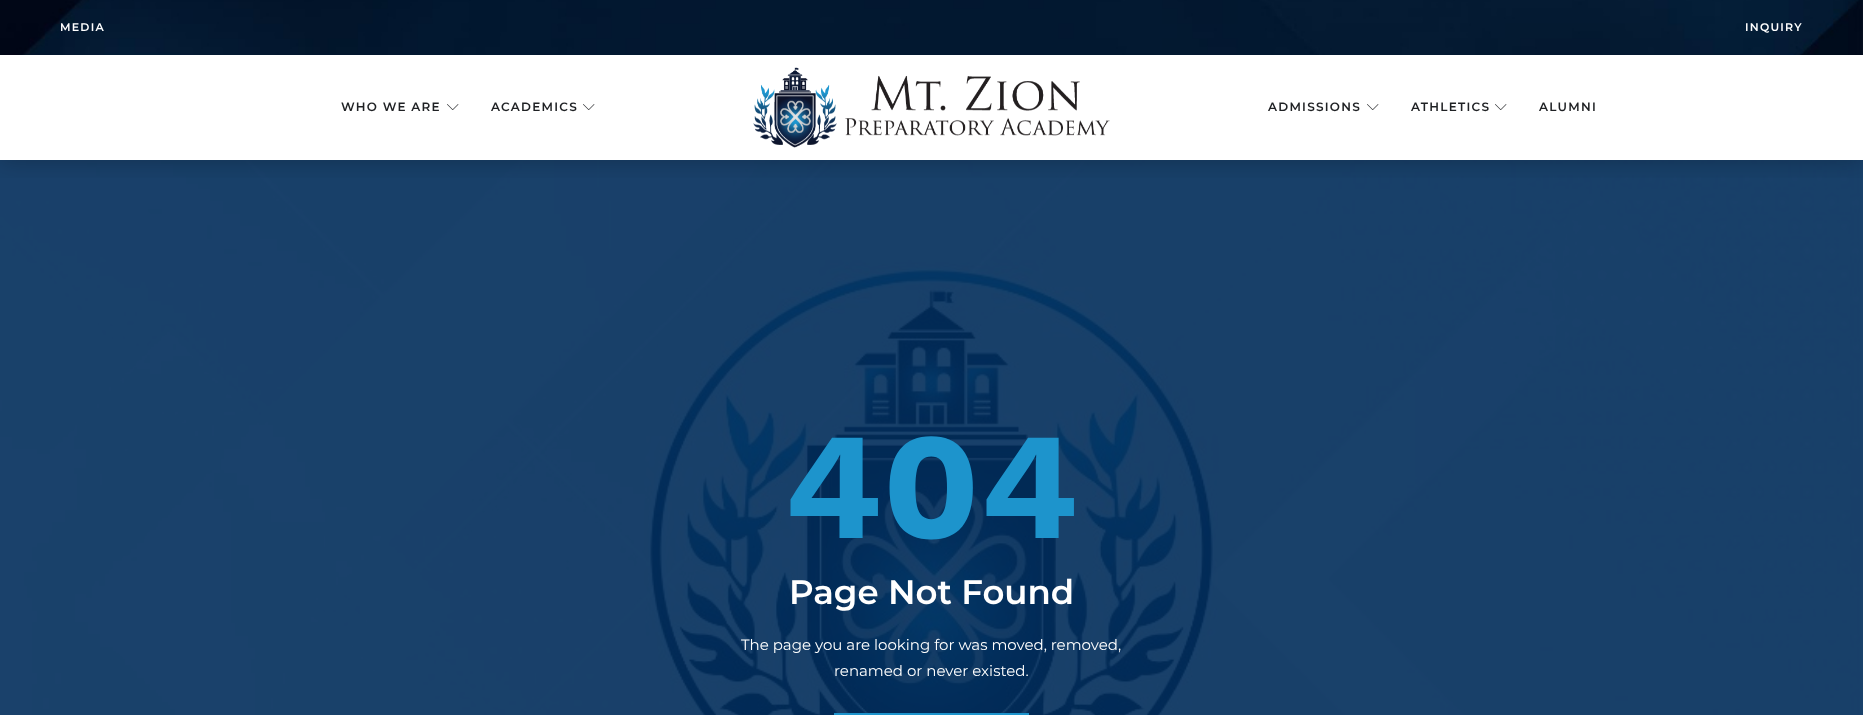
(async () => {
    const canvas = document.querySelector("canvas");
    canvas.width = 1863;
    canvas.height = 715;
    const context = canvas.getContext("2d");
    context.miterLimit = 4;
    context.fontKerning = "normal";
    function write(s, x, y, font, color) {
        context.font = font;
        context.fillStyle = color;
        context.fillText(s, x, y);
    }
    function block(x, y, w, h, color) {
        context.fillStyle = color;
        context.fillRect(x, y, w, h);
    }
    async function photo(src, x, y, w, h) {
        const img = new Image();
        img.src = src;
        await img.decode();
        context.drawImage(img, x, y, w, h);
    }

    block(0, 0, 1863, 715, "rgb(255, 255, 255)");
    await photo("media/4.png", 0, 160, 1863, 555);
    context.save();
    context.beginPath();
    context.rect(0, 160, 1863, 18);
    context.clip();
    context.fillStyle = "rgba(0, 0, 0, 0.25)";
    context.filter = "blur(12.5px)";
    context.beginPath();
    context.rect(0, 0, 1863, 160);
    context.fill();
    context.filter = "none";
    context.restore();
    await photo("media/1.png", 0, 0, 1863, 55);
    context.letterSpacing = "1.25px";
    write("MEDIA", 60, 31, "600 11px Montserrat", "rgb(255, 255, 255)");
    write("INQUIRY", 1745, 31, "600 11px Montserrat", "rgb(255, 255, 255)");
    write("WHO WE ARE", 341, 111, "600 12px Montserrat", "rgb(31, 33, 36)");
    await photo("media/2.png", 447, 104, 12, 6);
    write("ACADEMICS", 491, 111, "600 12px Montserrat", "rgb(31, 33, 36)");
    await photo("media/2.png", 583, 104, 12, 6);
    await photo("media/3.png", 753, 67, 357, 81);
    write("ADMISSIONS", 1268, 111, "600 12px Montserrat", "rgb(31, 33, 36)");
    await photo("media/2.png", 1367, 104, 12, 6);
    write("ATHLETICS", 1411, 111, "600 12px Montserrat", "rgb(31, 33, 36)");
    await photo("media/2.png", 1495, 104, 12, 6);
    write("ALUMNI", 1539, 111, "600 12px Montserrat", "rgb(31, 33, 36)");
    context.letterSpacing = "0px";
    write("404", 784, 538, "bold 152px Work Sans", "rgb(29, 148, 204)");
    write("Page Not Found", 789, 604, "600 34px Montserrat", "rgb(255, 255, 255)");
    write("The page you are looking for was moved, removed,", 741, 650, "15px Montserrat", "rgb(255, 255, 255)");
    write("renamed or never existed.", 834, 676, "15px Montserrat", "rgb(255, 255, 255)");
    block(834, 713, 195, 2, "rgb(29, 148, 204)");
})();
